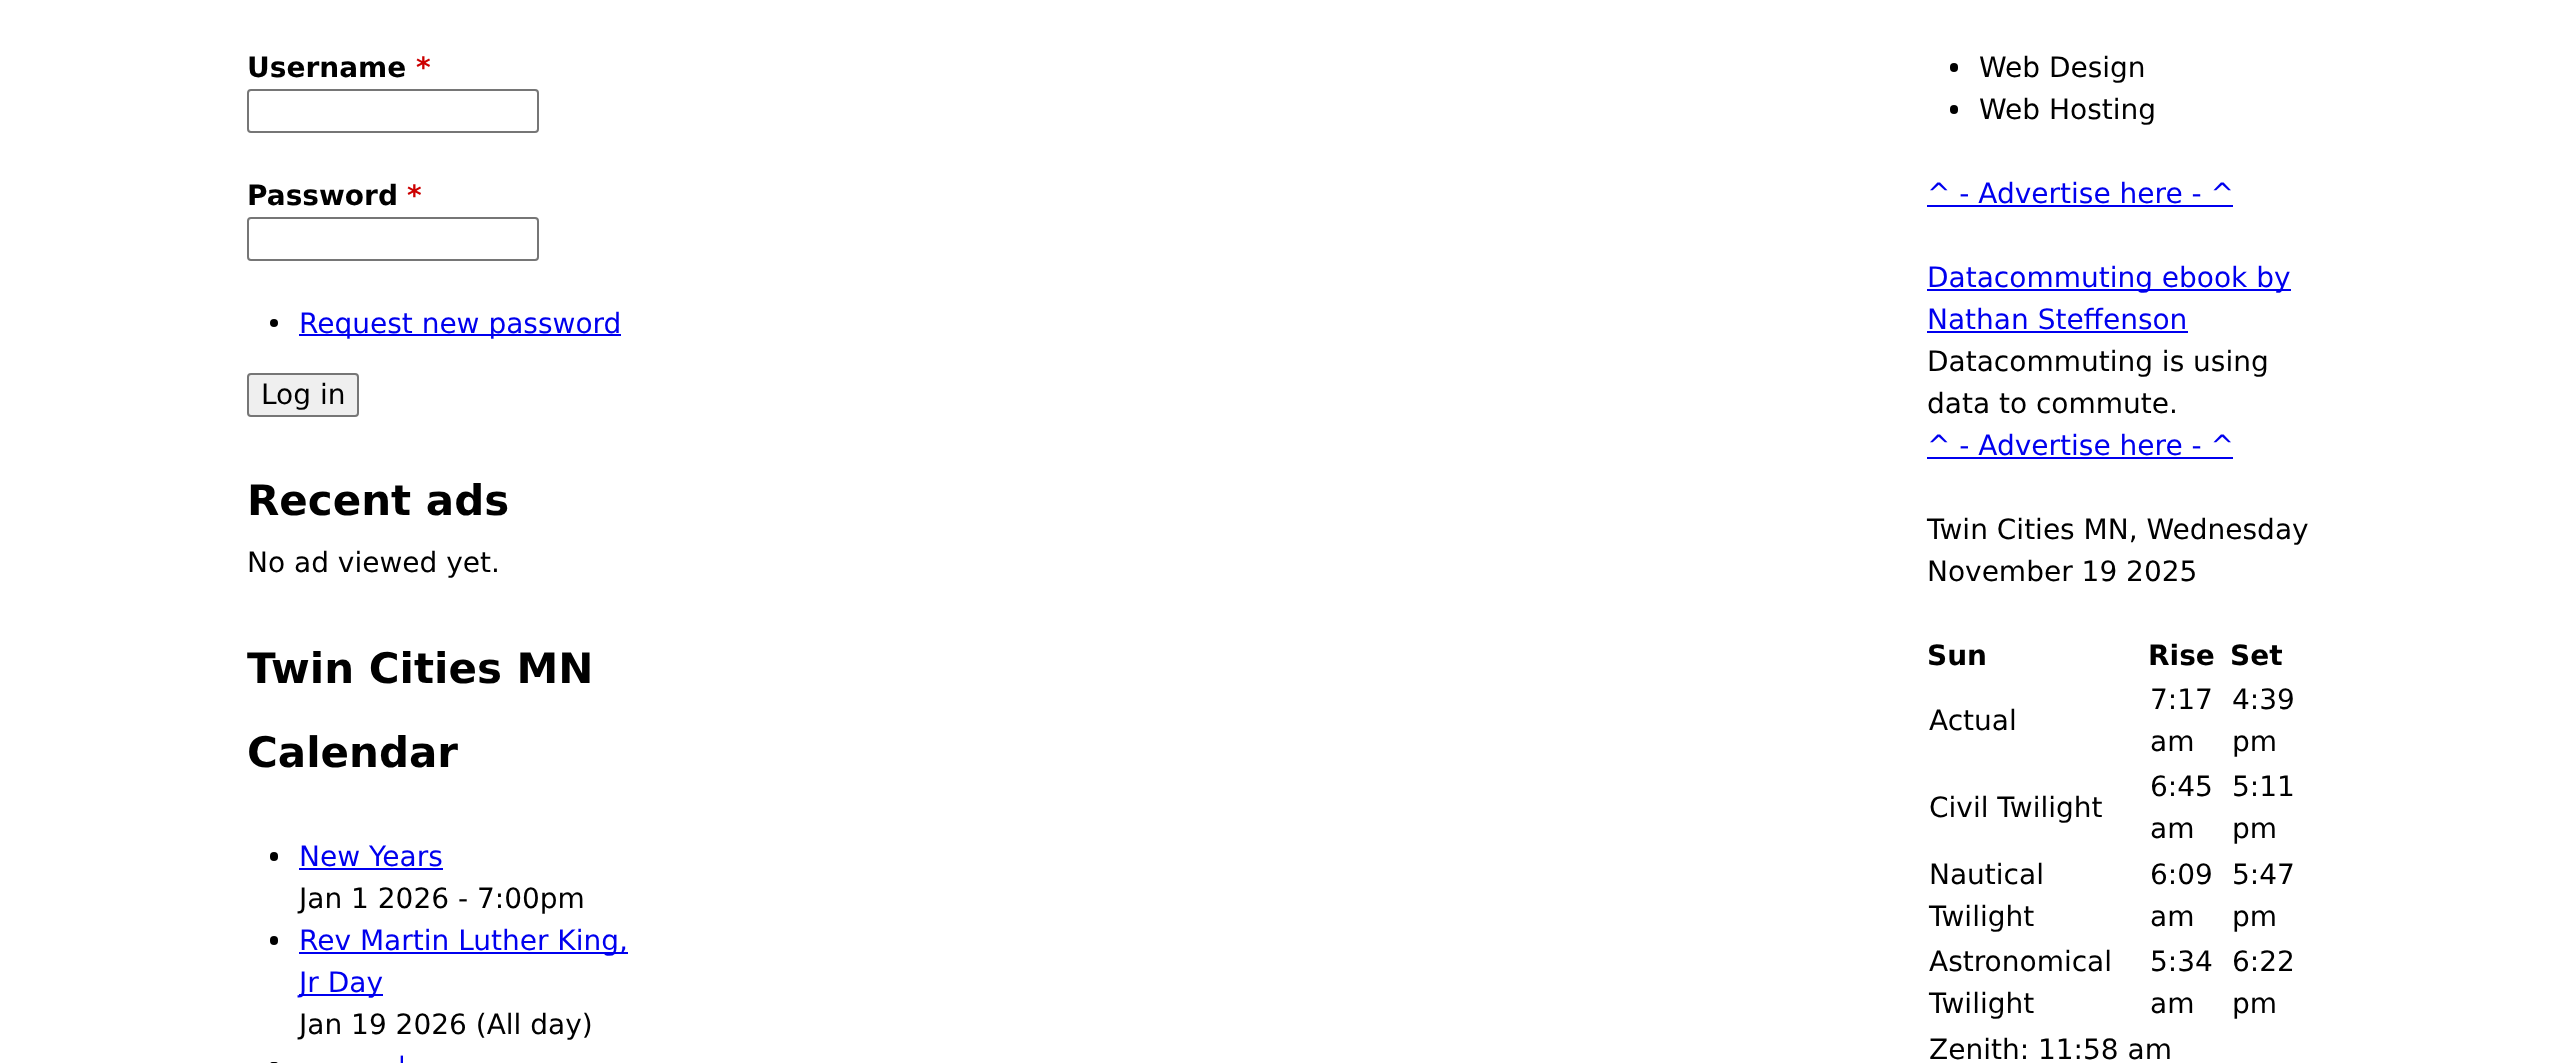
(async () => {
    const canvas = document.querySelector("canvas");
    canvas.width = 2557;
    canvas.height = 1063;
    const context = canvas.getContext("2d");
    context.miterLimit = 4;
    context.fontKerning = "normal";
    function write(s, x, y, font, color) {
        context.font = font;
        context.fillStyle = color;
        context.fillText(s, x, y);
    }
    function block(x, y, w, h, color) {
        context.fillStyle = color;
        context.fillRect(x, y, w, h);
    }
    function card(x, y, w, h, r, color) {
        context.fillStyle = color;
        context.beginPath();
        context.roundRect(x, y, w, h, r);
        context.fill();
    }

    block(0, 0, 2557, 1063, "rgb(255, 255, 255)");
    write("Username", 247, 77, "bold 28px DejaVu Sans", "rgb(0, 0, 0)");
    write("*", 416, 77, "bold 28px DejaVu Sans", "rgb(204, 0, 0)");
    context.beginPath();
    context.roundRect(248, 90, 290, 42, 3);
    context.strokeStyle = "rgb(118, 118, 118)";
    context.lineWidth = 2;
    context.stroke();
    write("Password", 247, 205, "bold 28px DejaVu Sans", "rgb(0, 0, 0)");
    write("*", 407, 205, "bold 28px DejaVu Sans", "rgb(204, 0, 0)");
    context.beginPath();
    context.roundRect(248, 218, 290, 42, 3);
    context.stroke();
    context.fillStyle = "rgb(0, 0, 0)";
    context.beginPath();
    context.arc(274, 323, 4, 0, Math.PI * 2);
    context.fill();
    block(299, 334, 322, 2, "rgb(0, 0, 238)");
    write("Request new password", 299, 333, "28px DejaVu Sans", "rgb(0, 0, 238)");
    context.fillStyle = "rgb(239, 239, 239)";
    context.beginPath();
    context.roundRect(248, 374, 110, 42, 3);
    context.fill();
    context.stroke();
    write("Log in", 261, 404, "28px DejaVu Sans", "rgb(0, 0, 0)");
    write("Recent ads", 247, 515, "bold 42px DejaVu Sans", "rgb(0, 0, 0)");
    write("No ad viewed yet.", 247, 572, "28px DejaVu Sans", "rgb(0, 0, 0)");
    write("Twin Cities MN", 247, 683, "bold 42px DejaVu Sans", "rgb(0, 0, 0)");
    write("Calendar", 247, 767, "bold 42px DejaVu Sans", "rgb(0, 0, 0)");
    card(270, 852, 8, 9, 4, "rgb(0, 0, 0)");
    write("New Years", 299, 866, "28px DejaVu Sans", "rgb(0, 0, 238)");
    block(299, 868, 144, 2, "rgb(0, 0, 238)");
    write("Jan 1 2026 - 7:00pm", 299, 908, "28px DejaVu Sans", "rgb(0, 0, 0)");
    card(270, 936, 8, 9, 4, "rgb(0, 0, 0)");
    block(299, 952, 329, 2, "rgb(0, 0, 238)");
    write("Rev Martin Luther King,", 299, 950, "28px DejaVu Sans", "rgb(0, 0, 238)");
    block(299, 994, 84, 2, "rgb(0, 0, 238)");
    write("Jr Day", 299, 992, "28px DejaVu Sans", "rgb(0, 0, 238)");
    write("Jan 19 2026 (All day)", 299, 1034, "28px DejaVu Sans", "rgb(0, 0, 0)");
    write("'", 398, 1076, "28px DejaVu Sans", "rgb(0, 0, 238)");
    card(270, 1062, 8, 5, 4, "rgb(0, 0, 0)");
    card(1950, 63, 8, 9, 4, "rgb(0, 0, 0)");
    write("Web Design", 1979, 77, "28px DejaVu Sans", "rgb(0, 0, 0)");
    card(1950, 105, 8, 9, 4, "rgb(0, 0, 0)");
    write("Web Hosting", 1979, 119, "28px DejaVu Sans", "rgb(0, 0, 0)");
    write("^ - Advertise here - ^", 1927, 203, "28px DejaVu Sans", "rgb(0, 0, 238)");
    block(1927, 205, 306, 2, "rgb(0, 0, 238)");
    block(1927, 289, 364, 2, "rgb(0, 0, 238)");
    write("Datacommuting ebook by", 1927, 287, "28px DejaVu Sans", "rgb(0, 0, 238)");
    write("Nathan Steffenson", 1927, 329, "28px DejaVu Sans", "rgb(0, 0, 238)");
    block(1927, 331, 261, 2, "rgb(0, 0, 238)");
    write("Datacommuting is using", 1927, 371, "28px DejaVu Sans", "rgb(0, 0, 0)");
    write("data to commute.", 1927, 413, "28px DejaVu Sans", "rgb(0, 0, 0)");
    write("^ - Advertise here - ^", 1927, 455, "28px DejaVu Sans", "rgb(0, 0, 238)");
    block(1927, 457, 306, 2, "rgb(0, 0, 238)");
    write("Twin Cities MN, Wednesday", 1927, 539, "28px DejaVu Sans", "rgb(0, 0, 0)");
    write("November 19 2025", 1927, 581, "28px DejaVu Sans", "rgb(0, 0, 0)");
    write("Sun", 1927, 665, "bold 28px DejaVu Sans", "rgb(0, 0, 0)");
    write("Rise", 2148, 665, "bold 28px DejaVu Sans", "rgb(0, 0, 0)");
    write("Set", 2230, 665, "bold 28px DejaVu Sans", "rgb(0, 0, 0)");
    write("Actual", 1929, 730, "28px DejaVu Sans", "rgb(0, 0, 0)");
    write("7:17", 2150, 709, "28px DejaVu Sans", "rgb(0, 0, 0)");
    write("am", 2150, 751, "28px DejaVu Sans", "rgb(0, 0, 0)");
    write("4:39", 2232, 709, "28px DejaVu Sans", "rgb(0, 0, 0)");
    write("pm", 2232, 751, "28px DejaVu Sans", "rgb(0, 0, 0)");
    write("Civil Twilight", 1929, 817, "28px DejaVu Sans", "rgb(0, 0, 0)");
    write("6:45", 2150, 796, "28px DejaVu Sans", "rgb(0, 0, 0)");
    write("am", 2150, 838, "28px DejaVu Sans", "rgb(0, 0, 0)");
    write("5:11", 2232, 796, "28px DejaVu Sans", "rgb(0, 0, 0)");
    write("pm", 2232, 838, "28px DejaVu Sans", "rgb(0, 0, 0)");
    write("Nautical", 1929, 884, "28px DejaVu Sans", "rgb(0, 0, 0)");
    write("Twilight", 1929, 926, "28px DejaVu Sans", "rgb(0, 0, 0)");
    write("6:09", 2150, 884, "28px DejaVu Sans", "rgb(0, 0, 0)");
    write("am", 2150, 926, "28px DejaVu Sans", "rgb(0, 0, 0)");
    write("5:47", 2232, 884, "28px DejaVu Sans", "rgb(0, 0, 0)");
    write("pm", 2232, 926, "28px DejaVu Sans", "rgb(0, 0, 0)");
    write("Astronomical", 1929, 971, "28px DejaVu Sans", "rgb(0, 0, 0)");
    write("Twilight", 1929, 1013, "28px DejaVu Sans", "rgb(0, 0, 0)");
    write("5:34", 2150, 971, "28px DejaVu Sans", "rgb(0, 0, 0)");
    write("am", 2150, 1013, "28px DejaVu Sans", "rgb(0, 0, 0)");
    write("6:22", 2232, 971, "28px DejaVu Sans", "rgb(0, 0, 0)");
    write("pm", 2232, 1013, "28px DejaVu Sans", "rgb(0, 0, 0)");
    write("Zenith: 11:58 am", 1929, 1059, "28px DejaVu Sans", "rgb(0, 0, 0)");
})();
